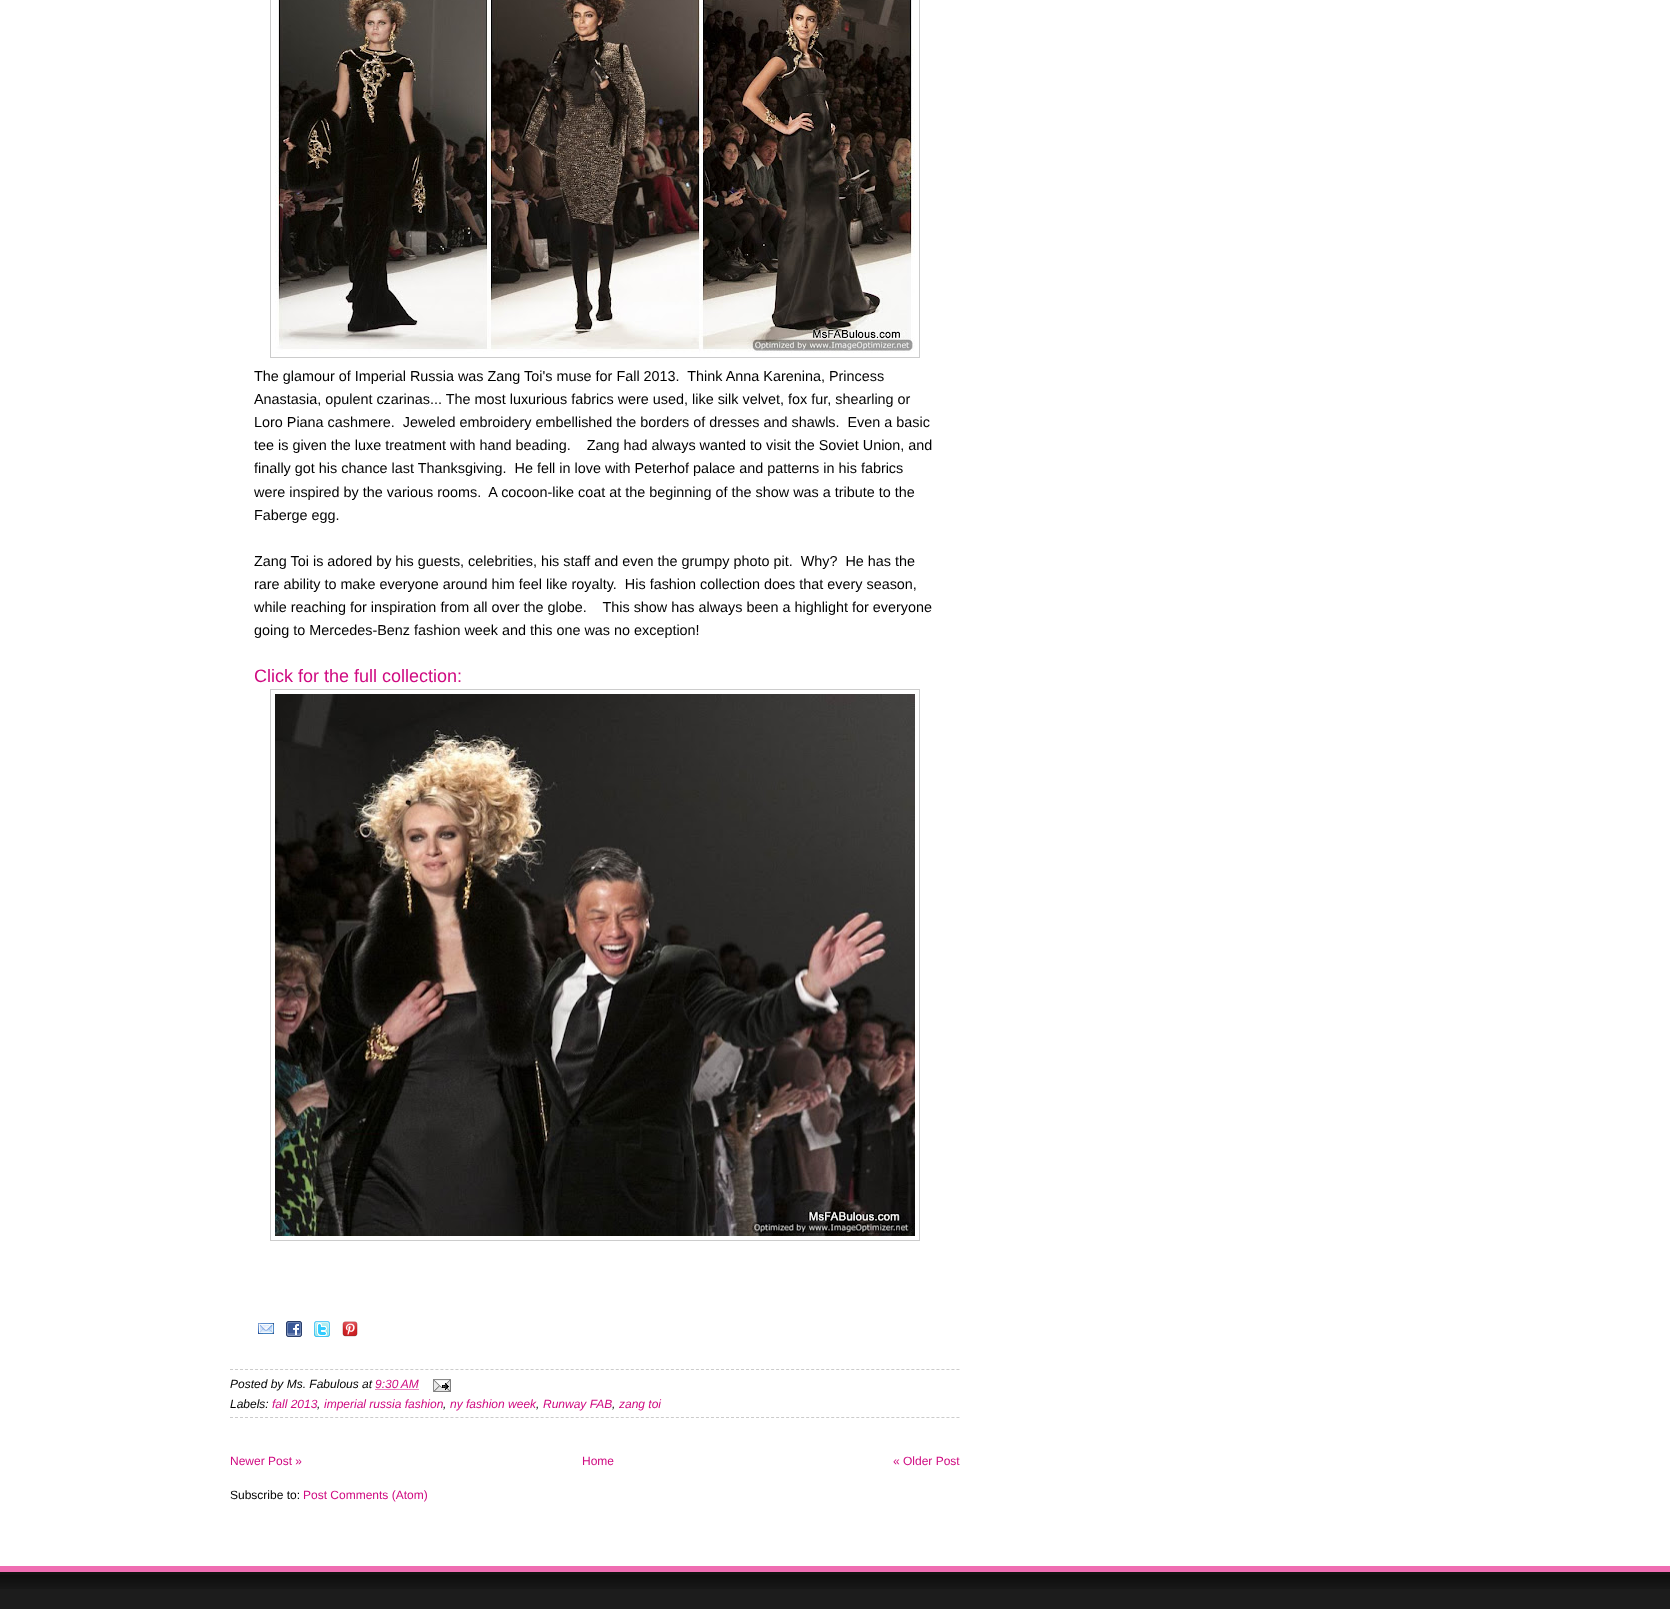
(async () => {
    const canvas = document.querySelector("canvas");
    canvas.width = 1670;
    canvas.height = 1609;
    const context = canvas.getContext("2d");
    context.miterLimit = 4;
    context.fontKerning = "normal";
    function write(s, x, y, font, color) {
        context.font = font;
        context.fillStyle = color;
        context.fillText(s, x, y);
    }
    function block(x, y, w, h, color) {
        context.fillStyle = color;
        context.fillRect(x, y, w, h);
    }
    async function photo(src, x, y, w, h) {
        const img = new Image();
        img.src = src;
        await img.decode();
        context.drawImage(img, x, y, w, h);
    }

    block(0, 0, 1670, 1609, "rgb(255, 255, 255)");
    context.strokeStyle = "rgb(204, 204, 204)";
    context.strokeRect(270.5, -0.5, 649, 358);
    await photo("media/1.png", 275, 0, 640, 353);
    write("The glamour of Imperial Russia was Zang Toi's muse for Fall 2013.  Think Anna Karenina, Princess", 254, 381, "14.4px Liberation Sans", "rgb(0, 0, 0)");
    write("Anastasia, opulent czarinas... The most luxurious fabrics were used, like silk velvet, fox fur, shearling or", 254, 404, "14.4px Liberation Sans", "rgb(0, 0, 0)");
    write("Loro Piana cashmere.  Jeweled embroidery embellished the borders of dresses and shawls.  Even a basic", 254, 427, "14.4px Liberation Sans", "rgb(0, 0, 0)");
    write("tee is given the luxe treatment with hand beading.    Zang had always wanted to visit the Soviet Union, and", 254, 450, "14.4px Liberation Sans", "rgb(0, 0, 0)");
    write("finally got his chance last Thanksgiving.  He fell in love with Peterhof palace and patterns in his fabrics", 254, 473, "14.4px Liberation Sans", "rgb(0, 0, 0)");
    write("were inspired by the various rooms.  A cocoon-like coat at the beginning of the show was a tribute to the", 254, 497, "14.4px Liberation Sans", "rgb(0, 0, 0)");
    write("Faberge egg.", 254, 520, "14.4px Liberation Sans", "rgb(0, 0, 0)");
    write("Zang Toi is adored by his guests, celebrities, his staff and even the grumpy photo pit.  Why?  He has the", 254, 566, "14.4px Liberation Sans", "rgb(0, 0, 0)");
    write("rare ability to make everyone around him feel like royalty.  His fashion collection does that every season,", 254, 589, "14.4px Liberation Sans", "rgb(0, 0, 0)");
    write("while reaching for inspiration from all over the globe.    This show has always been a highlight for everyone", 254, 612, "14.4px Liberation Sans", "rgb(0, 0, 0)");
    write("going to Mercedes-Benz fashion week and this one was no exception!", 254, 635, "14.4px Liberation Sans", "rgb(0, 0, 0)");
    write("Click for the full collection:", 254, 682, "18px Liberation Sans", "rgb(207, 10, 128)");
    context.strokeRect(270.5, 689.5, 649, 551);
    await photo("media/2.png", 275, 694, 640, 542);
    await photo("media/3.png", 258, 1323, 16, 11);
    await photo("media/4.png", 286, 1321, 16, 16);
    await photo("media/5.png", 314, 1321, 16, 16);
    await photo("media/6.png", 342, 1321, 16, 16);
    context.beginPath();
    context.moveTo(230, 1369.5);
    context.lineTo(960, 1369.5);
    context.setLineDash([3, 2.01]);
    context.stroke();
    context.beginPath();
    context.moveTo(230, 1417.5);
    context.lineTo(960, 1417.5);
    context.stroke();
    write("Posted by Ms. Fabulous at", 230, 1388, "italic 12px Liberation Sans", "rgb(0, 0, 0)");
    write("9:30 AM", 375, 1388, "italic 12px Liberation Sans", "rgb(207, 10, 128)");
    context.beginPath();
    context.moveTo(375.5, 1389.5);
    context.lineTo(419, 1389.5);
    context.strokeStyle = "rgb(207, 10, 128)";
    context.setLineDash([1, 1]);
    context.stroke();
    await photo("media/7.png", 433, 1379, 18, 13);
    write("Labels:", 230, 1408, "italic 12px Liberation Sans", "rgb(0, 0, 0)");
    write("fall 2013", 272, 1408, "italic 12px Liberation Sans", "rgb(207, 10, 128)");
    write(",", 317, 1408, "italic 12px Liberation Sans", "rgb(0, 0, 0)");
    write("imperial russia fashion", 324, 1408, "italic 12px Liberation Sans", "rgb(207, 10, 128)");
    write(",", 443, 1408, "italic 12px Liberation Sans", "rgb(0, 0, 0)");
    write("ny fashion week", 450, 1408, "italic 12px Liberation Sans", "rgb(207, 10, 128)");
    write(",", 536, 1408, "italic 12px Liberation Sans", "rgb(0, 0, 0)");
    write("Runway FAB", 543, 1408, "italic 12px Liberation Sans", "rgb(207, 10, 128)");
    write(",", 612, 1408, "italic 12px Liberation Sans", "rgb(0, 0, 0)");
    write("zang toi", 619, 1408, "italic 12px Liberation Sans", "rgb(207, 10, 128)");
    write("Newer Post »", 230, 1465, "12px Liberation Sans", "rgb(207, 10, 128)");
    write("Home", 582, 1465, "12px Liberation Sans", "rgb(207, 10, 128)");
    write("« Older Post", 893, 1465, "12px Liberation Sans", "rgb(207, 10, 128)");
    write("Subscribe to:", 230, 1499, "12px Liberation Sans", "rgb(0, 0, 0)");
    write("Post Comments (Atom)", 303, 1499, "12px Liberation Sans", "rgb(207, 10, 128)");
    block(0, 1572, 1670, 3, "rgb(18, 18, 17)");
    block(0, 1566, 1670, 6, "rgb(239, 109, 178)");
    block(0, 1589, 1670, 20, "rgb(28, 28, 28)");
    await photo("media/8.png", 0, 1575, 1670, 14);
})();
